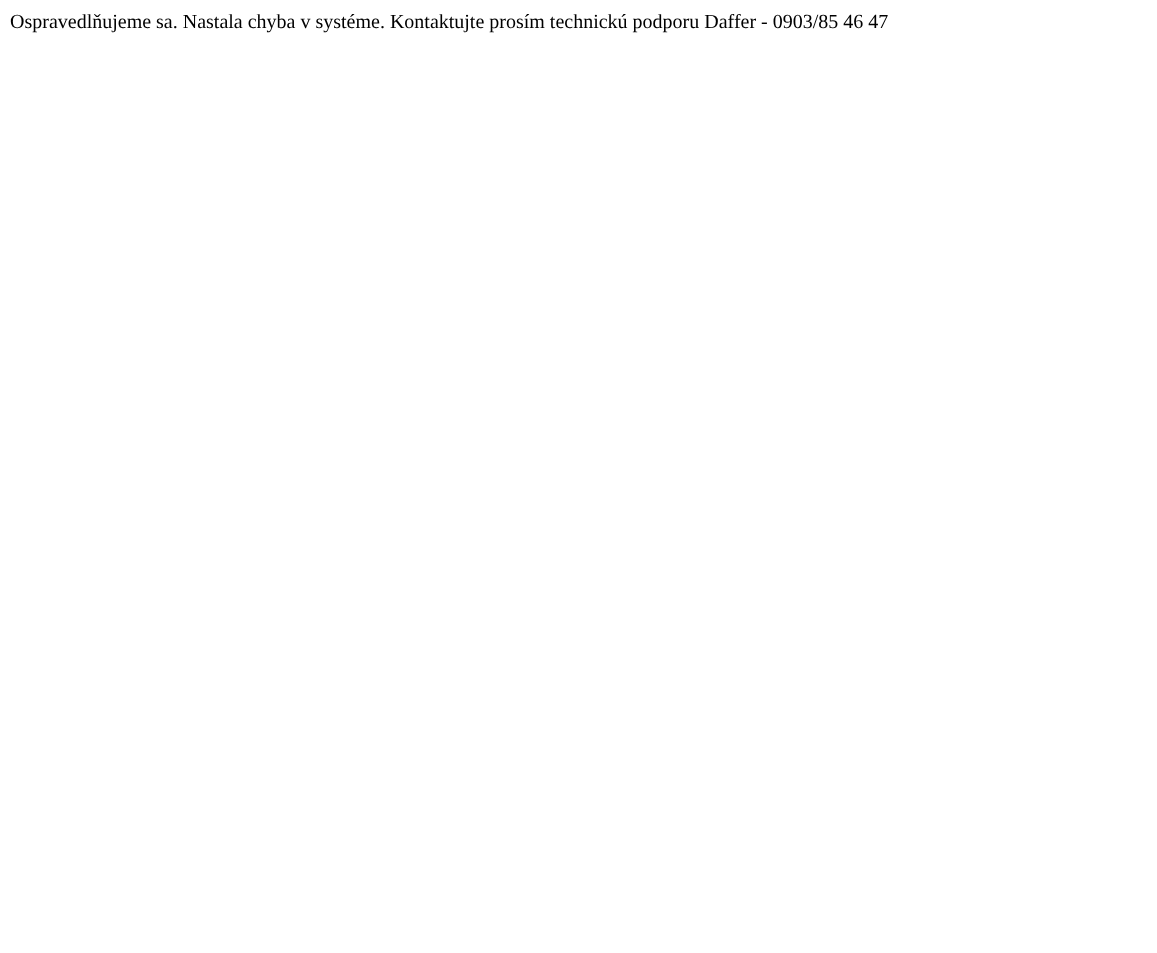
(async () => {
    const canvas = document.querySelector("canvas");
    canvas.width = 1157;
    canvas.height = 953;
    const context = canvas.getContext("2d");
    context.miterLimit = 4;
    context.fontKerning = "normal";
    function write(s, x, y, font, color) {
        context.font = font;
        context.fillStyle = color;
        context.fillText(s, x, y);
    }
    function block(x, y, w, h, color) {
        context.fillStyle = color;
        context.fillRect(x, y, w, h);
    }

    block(0, 0, 1157, 953, "rgb(255, 255, 255)");
    write("Ospravedlňujeme sa. Nastala chyba v systéme. Kontaktujte prosím technickú podporu Daffer - 0903/85 46 47", 10, 28, "20px Liberation Serif", "rgb(0, 0, 0)");
})();
